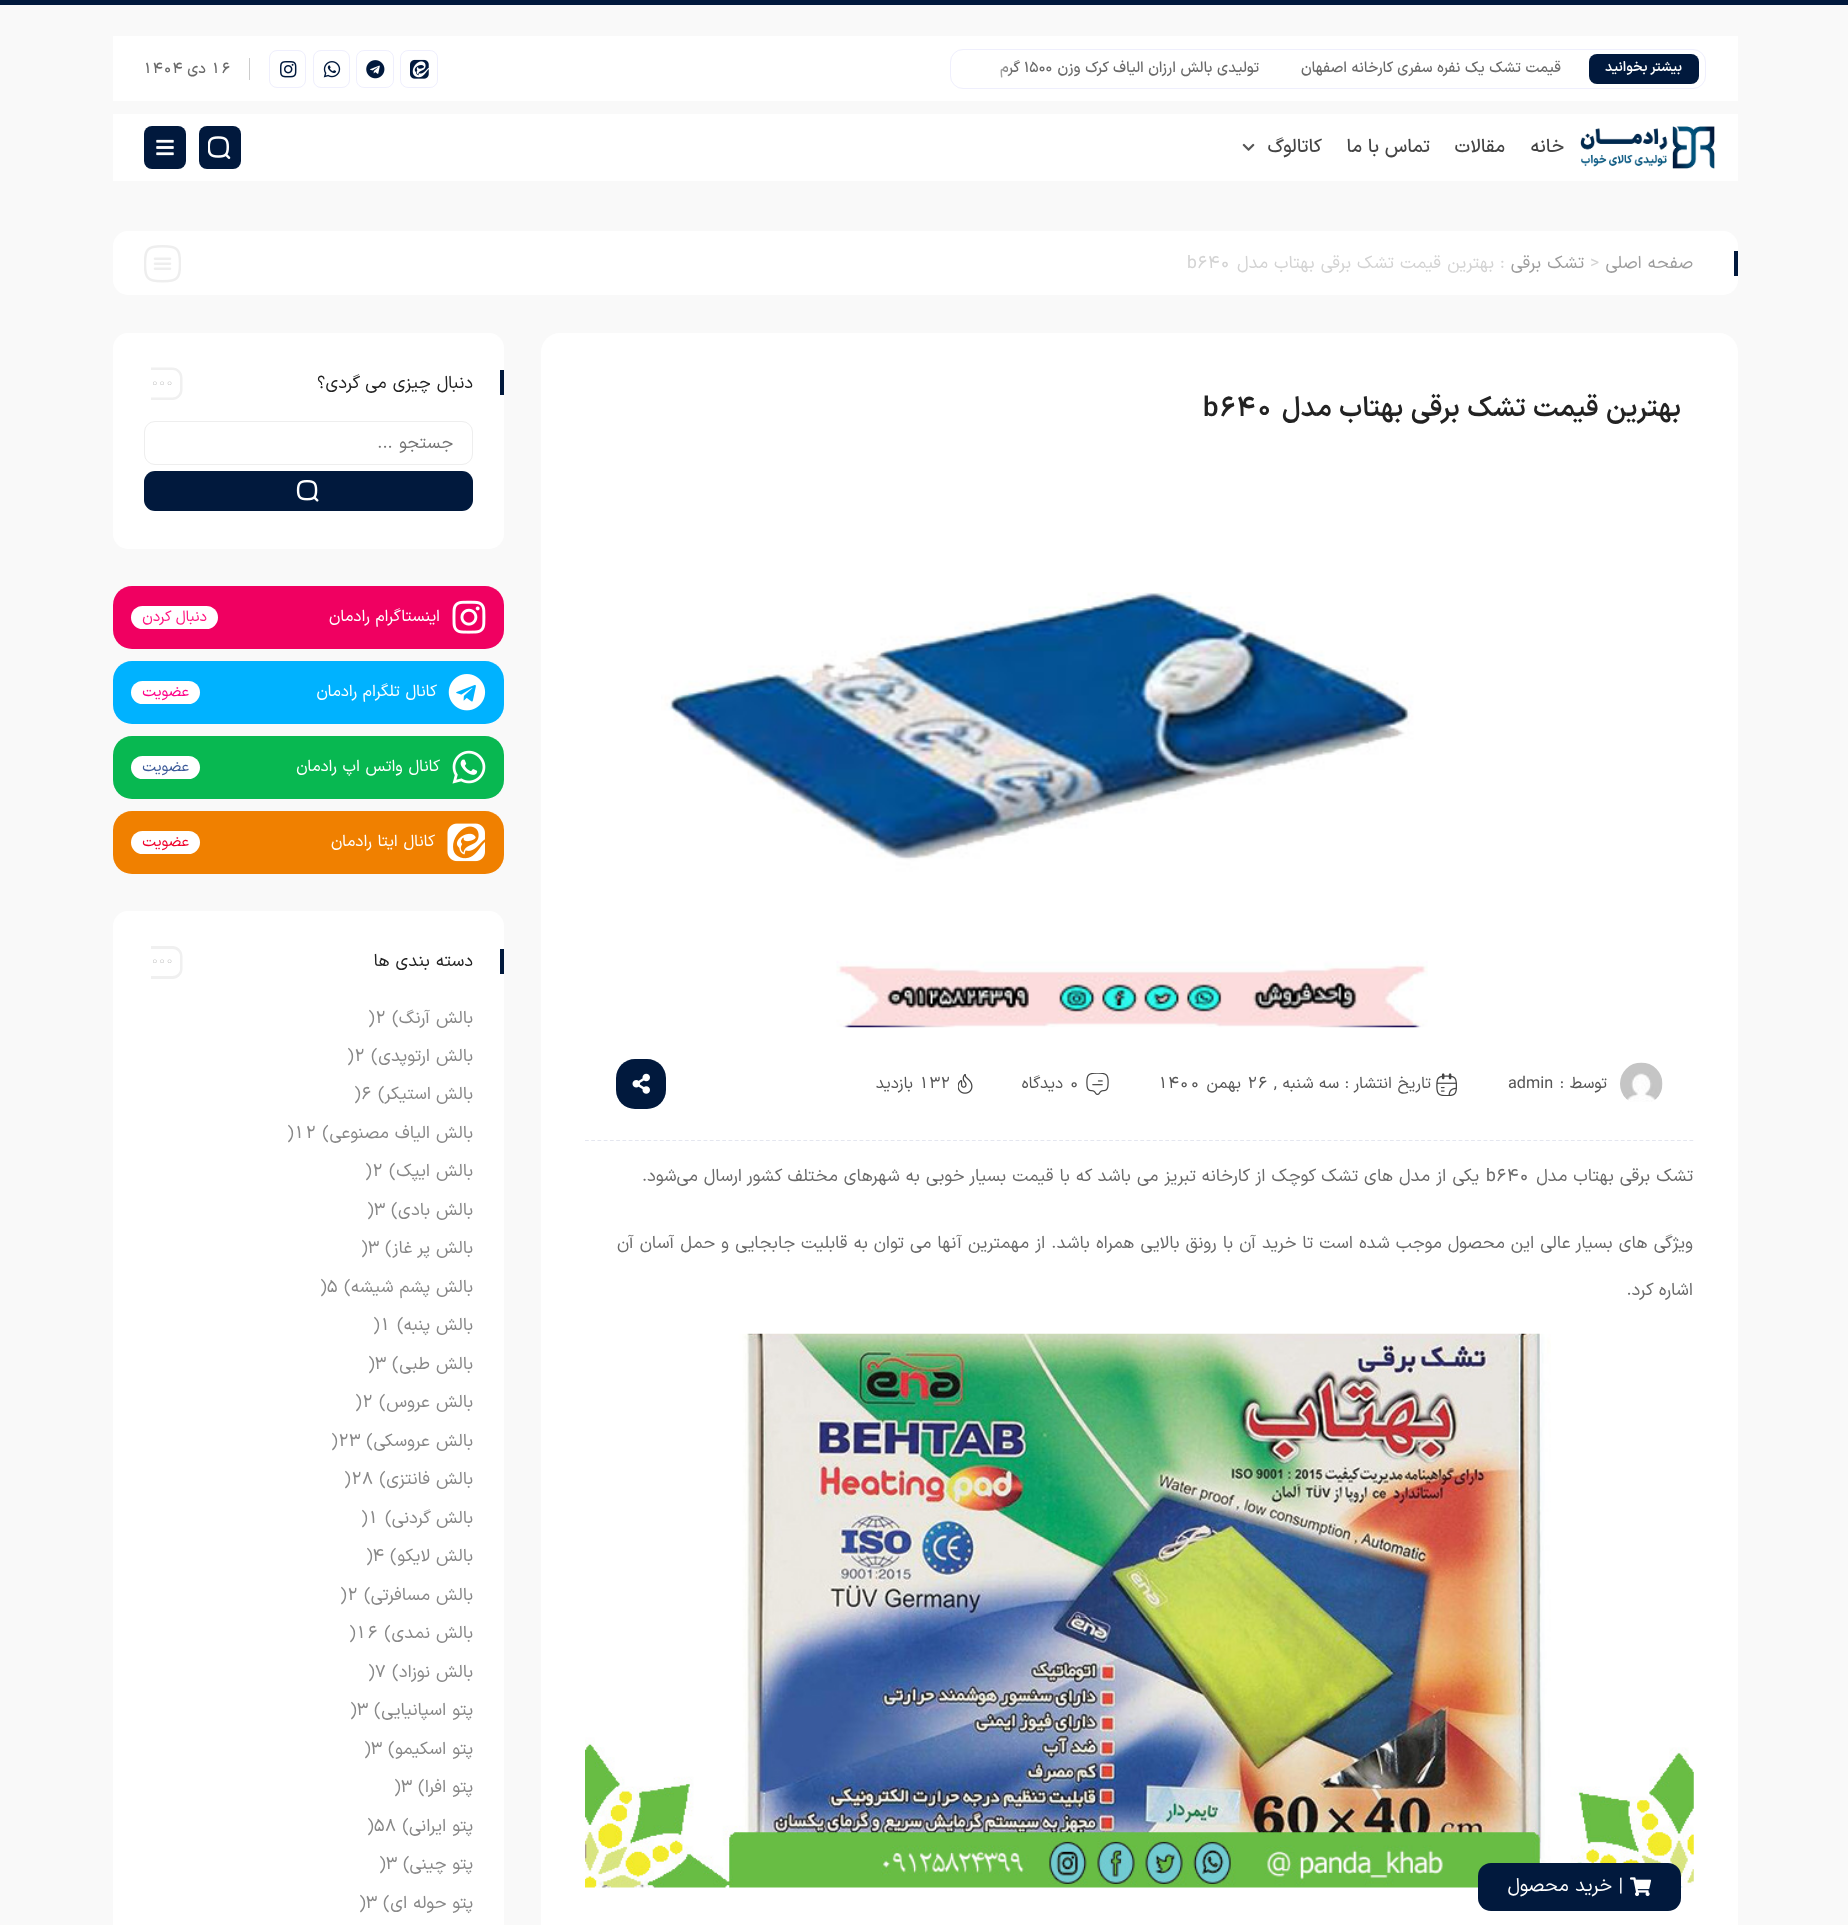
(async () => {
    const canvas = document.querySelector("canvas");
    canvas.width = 1848;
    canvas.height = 1925;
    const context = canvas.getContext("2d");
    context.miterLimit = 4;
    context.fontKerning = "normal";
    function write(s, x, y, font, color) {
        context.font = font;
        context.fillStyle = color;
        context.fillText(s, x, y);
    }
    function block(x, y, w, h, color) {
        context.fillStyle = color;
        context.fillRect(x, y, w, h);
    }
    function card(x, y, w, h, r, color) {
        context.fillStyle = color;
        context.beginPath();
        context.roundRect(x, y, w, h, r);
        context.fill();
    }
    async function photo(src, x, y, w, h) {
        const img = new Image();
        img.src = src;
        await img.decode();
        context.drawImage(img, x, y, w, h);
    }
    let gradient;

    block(0, 0, 1848, 1925, "rgb(249, 249, 249)");
    block(0, 0, 1848, 5, "rgb(1, 25, 61)");
    block(113, 36, 1625, 65, "rgb(255, 255, 255)");
    context.beginPath();
    context.roundRect(950.5, 49.5, 755, 39, 12.5);
    context.strokeStyle = "rgb(239, 239, 253)";
    context.stroke();
    card(1589, 54, 110, 30, 8, "rgb(1, 25, 61)");
    context.direction = "rtl";
    write("بیشتر بخوانید", 1682, 71, "600 13.75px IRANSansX", "rgb(255, 255, 255)");
    write("قیمت تشک یک نفره سفری کارخانه اصفهان", 1561, 72, "500 15px IRANSansX", "rgb(106, 106, 106)");
    gradient = context.createLinearGradient(1558, 69, 1583, 69);
    gradient.addColorStop(0, "rgba(255, 255, 255, 0)");
    gradient.addColorStop(0.7, "rgb(255, 255, 255)");
    context.fillStyle = gradient;
    context.fillRect(1558, 61, 3, 10);
    write("تولیدی بالش ارزان الیاف کرک وزن", 1259, 72, "500 15px IRANSansX", "rgb(106, 106, 106)");
    context.direction = "ltr";
    write("۱۵۰۰", 1024, 72, "500 15px IRANSansX", "rgb(106, 106, 106)");
    context.direction = "rtl";
    write("گرم", 1020, 72, "500 15px IRANSansX", "rgb(106, 106, 106)");
    gradient = context.createLinearGradient(983, 69, 1025, 69);
    gradient.addColorStop(0, "rgb(255, 255, 255)");
    gradient.addColorStop(0.7, "rgba(255, 255, 255, 0)");
    context.fillStyle = gradient;
    context.fillRect(1000, 66, 12, 12);
    context.beginPath();
    context.roundRect(400.5, 50.5, 37, 37, 7.5);
    context.strokeStyle = "rgba(81, 76, 230, 0.09)";
    context.stroke();
    await photo("media/1.png", 410, 59, 19, 20);
    context.beginPath();
    context.roundRect(356.5, 50.5, 37, 37, 7.5);
    context.stroke();
    await photo("media/2.png", 366, 60, 19, 19);
    context.beginPath();
    context.roundRect(313.5, 50.5, 36, 37, 7.5);
    context.strokeStyle = "rgb(239, 239, 253)";
    context.stroke();
    await photo("media/3.png", 323, 61, 18, 17);
    context.beginPath();
    context.roundRect(269.5, 50.5, 36, 37, 7.5);
    context.stroke();
    await photo("media/4.png", 280, 61, 17, 17);
    block(249, 58, 1, 22, "rgb(204, 204, 204)");
    context.direction = "ltr";
    write("16", 211, 73, "500 15px IRANSansX", "rgb(106, 106, 106)");
    context.direction = "rtl";
    write("دی", 206, 73, "500 15px IRANSansX", "rgb(106, 106, 106)");
    context.direction = "ltr";
    write("1404", 143, 73, "500 15px IRANSansX", "rgb(106, 106, 106)");
    block(113, 114, 1625, 67, "rgb(255, 255, 255)");
    await photo("media/5.png", 1580, 126, 135, 43);
    context.direction = "rtl";
    write("خانه", 1564, 152, "500 18.75px IRANSansX", "rgb(68, 68, 68)");
    write("مقالات", 1505, 152, "500 18.75px IRANSansX", "rgb(68, 68, 68)");
    write("تماس با ما", 1430, 152, "500 18.75px IRANSansX", "rgb(68, 68, 68)");
    write("کاتالوگ", 1322, 152, "500 18.75px IRANSansX", "rgb(68, 68, 68)");
    await photo("media/6.png", 1242, 143, 13, 8);
    card(199, 126, 42, 43, 8, "rgb(1, 25, 61)");
    await photo("media/7.png", 208, 136, 23, 23);
    card(144, 126, 42, 43, 8, "rgb(1, 25, 61)");
    await photo("media/8.png", 156, 139, 18, 17);
    card(113, 231, 1625, 64, 15, "rgb(255, 255, 255)");
    block(1734, 251, 4, 25, "rgb(1, 25, 61)");
    write("صفحه اصلی", 1693, 268, "17.5px IRANSansX", "rgb(157, 157, 157)");
    context.direction = "ltr";
    write(">", 1590, 268, "17.5px IRANSansX", "rgb(211, 211, 211)");
    context.direction = "rtl";
    write("تشک برقی", 1584, 268, "17.5px IRANSansX", "rgb(157, 157, 157)");
    context.direction = "ltr";
    write(":", 1500, 268, "17.5px IRANSansX", "rgb(211, 211, 211)");
    context.direction = "rtl";
    write("بهترین قیمت تشک برقی بهتاب مدل", 1494, 268, "17.5px IRANSansX", "rgb(211, 211, 211)");
    context.direction = "ltr";
    write("b640", 1187, 268, "17.5px IRANSansX", "rgb(211, 211, 211)");
    await photo("media/9.png", 144, 245, 37, 38);
    card(541, 333, 1197, 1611, 19, "rgb(255, 255, 255)");
    context.direction = "rtl";
    write("بهترین قیمت تشک برقی بهتاب مدل", 1681, 416, "600 27.5px IRANSansX", "rgb(34, 34, 34)");
    context.direction = "ltr";
    write("b640", 1203, 416, "600 27.5px IRANSansX", "rgb(34, 34, 34)");
    await photo("media/10.png", 661, 592, 767, 436);
    await photo("media/11.png", 1620, 1062, 43, 40);
    context.direction = "rtl";
    write("توسط :", 1607, 1088, "16.25px IRANSansX", "rgb(85, 85, 85)");
    context.direction = "ltr";
    write("admin", 1508, 1088, "16.25px IRANSansX", "rgb(85, 85, 85)");
    await photo("media/12.png", 1436, 1073, 21, 23);
    context.direction = "rtl";
    write("تاریخ انتشار :", 1431, 1088, "16.25px IRANSansX", "rgb(85, 85, 85)");
    write("سه شنبه ,", 1339, 1088, "16.25px IRANSansX", "rgb(85, 85, 85)");
    context.direction = "ltr";
    write("26", 1247, 1088, "16.25px IRANSansX", "rgb(85, 85, 85)");
    context.direction = "rtl";
    write("بهمن", 1241, 1088, "16.25px IRANSansX", "rgb(85, 85, 85)");
    context.direction = "ltr";
    write("1400", 1158, 1088, "16.25px IRANSansX", "rgb(85, 85, 85)");
    await photo("media/13.png", 1086, 1073, 23, 22);
    write("0", 1069, 1088, "16.25px IRANSansX", "rgb(85, 85, 85)");
    context.direction = "rtl";
    write("دیدگاه", 1063, 1088, "16.25px IRANSansX", "rgb(85, 85, 85)");
    await photo("media/14.png", 958, 1074, 15, 20);
    context.direction = "ltr";
    write("132", 919, 1088, "16.25px IRANSansX", "rgb(85, 85, 85)");
    context.direction = "rtl";
    write("بازدید", 913, 1088, "16.25px IRANSansX", "rgb(85, 85, 85)");
    card(616, 1059, 50, 50, 19, "rgb(1, 25, 61)");
    await photo("media/15.png", 632, 1073, 18, 21);
    context.beginPath();
    context.moveTo(585, 1140.5);
    context.lineTo(1694, 1140.5);
    context.strokeStyle = "rgb(228, 230, 239)";
    context.lineWidth = 1.2;
    context.setLineDash([3.75, 2.49]);
    context.stroke();
    write("تشک برقی بهتاب مدل", 1693, 1181, "17.5px IRANSansX", "rgb(106, 106, 106)");
    context.direction = "ltr";
    write("b640", 1486, 1181, "17.5px IRANSansX", "rgb(106, 106, 106)");
    context.direction = "rtl";
    write("یکی از مدل های تشک کوچک از کارخانه تبریز می باشد که با قیمت بسیار خوبی به شهرهای مختلف کشور ارسال می‌شود.", 1479, 1181, "17.5px IRANSansX", "rgb(106, 106, 106)");
    write("ویژگی های بسیار عالی این محصول موجب شده است تا خرید آن با رونق بالایی همراه باشد. از مهمترین آنها می توان به قابلیت جابجایی و حمل آسان آن", 1693, 1248, "17.5px IRANSansX", "rgb(106, 106, 106)");
    write("اشاره کرد.", 1693, 1295, "17.5px IRANSansX", "rgb(106, 106, 106)");
    await photo("media/16.png", 585, 1333, 1109, 555);
    card(1478, 1863, 203, 48, 13, "rgb(1, 25, 61)");
    await photo("media/17.png", 1630, 1877, 22, 20);
    write("| خرید محصول", 1623, 1891, "18.75px IRANSansX", "rgb(255, 255, 255)");
    card(113, 333, 391, 216, 15, "rgb(255, 255, 255)");
    block(500, 370, 4, 25, "rgb(1, 25, 61)");
    write("دنبال چیزی می گردی؟", 473, 388, "17.5px IRANSansX", "rgb(34, 34, 34)");
    context.fillStyle = "rgb(240, 240, 240)";
    context.beginPath();
    context.moveTo(151, 367.5);
    context.lineTo(172.5, 367.5);
    context.bezierCurveTo(178, 367.5, 182.5, 372, 182.5, 377.5);
    context.lineTo(182.5, 390);
    context.bezierCurveTo(182.5, 395.5, 178, 400, 172.5, 400);
    context.lineTo(151, 400);
    context.closePath();
    context.moveTo(151, 370);
    context.lineTo(172.5, 370);
    context.bezierCurveTo(176.5, 370, 180, 373.5, 180, 377.5);
    context.lineTo(180, 390);
    context.bezierCurveTo(180, 394, 176.5, 397.5, 172.5, 397.5);
    context.lineTo(151, 397.5);
    context.closePath();
    context.fill("evenodd");
    context.direction = "ltr";
    write("000", 151, 386, "100 13.75px IRANSansX", "rgb(183, 183, 183)");
    context.beginPath();
    context.roundRect(144.5, 421.5, 328, 43, 10.5);
    context.strokeStyle = "rgb(238, 238, 238)";
    context.lineWidth = 1;
    context.setLineDash([]);
    context.stroke();
    context.direction = "rtl";
    write("جستجو ...", 453, 448, "17.5px IRANSansX", "rgb(117, 117, 117)");
    card(144, 471, 329, 40, 11, "rgb(1, 25, 61)");
    await photo("media/18.png", 296, 480, 23, 22);
    card(113, 586, 391, 63, 19, "rgb(240, 0, 97)");
    await photo("media/19.png", 452, 600, 34, 34);
    write("اینستاگرام رادمان", 440, 621, "16.25px IRANSansX", "rgb(255, 255, 255)");
    card(131, 606, 87, 23, 11.5, "rgb(255, 255, 255)");
    write("دنبال کردن", 207, 621, "15px IRANSansX", "rgb(255, 22, 128)");
    card(113, 661, 391, 63, 19, "rgb(0, 178, 255)");
    await photo("media/20.png", 448, 674, 38, 37);
    write("کانال تلگرام رادمان", 437, 696, "16.25px IRANSansX", "rgb(255, 255, 255)");
    card(131, 681, 69, 23, 11.5, "rgb(255, 255, 255)");
    write("عضویت", 189, 696, "15px IRANSansX", "rgb(255, 0, 136)");
    card(113, 736, 391, 63, 19, "rgb(8, 184, 81)");
    await photo("media/21.png", 452, 750, 34, 34);
    write("کانال واتس اپ رادمان", 440, 771, "16.25px IRANSansX", "rgb(255, 255, 255)");
    card(131, 756, 69, 23, 11.5, "rgb(255, 255, 255)");
    write("عضویت", 189, 771, "15px IRANSansX", "rgb(59, 89, 152)");
    card(113, 811, 391, 63, 19, "rgb(240, 128, 0)");
    await photo("media/22.png", 447, 823, 38, 39);
    write("کانال ایتا رادمان", 435, 846, "16.25px IRANSansX", "rgb(255, 255, 255)");
    card(131, 831, 69, 23, 11.5, "rgb(255, 255, 255)");
    write("عضویت", 189, 846, "15px IRANSansX", "rgb(240, 0, 42)");
    card(113, 911, 391, 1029, 15, "rgb(255, 255, 255)");
    block(500, 949, 4, 25, "rgb(1, 25, 61)");
    write("دسته بندی ها", 473, 966, "17.5px IRANSansX", "rgb(34, 34, 34)");
    context.fillStyle = "rgb(240, 240, 240)";
    context.beginPath();
    context.moveTo(151, 946);
    context.lineTo(172.5, 946);
    context.bezierCurveTo(178, 946, 182.5, 950.5, 182.5, 956);
    context.lineTo(182.5, 969);
    context.bezierCurveTo(182.5, 974.5, 178, 979, 172.5, 979);
    context.lineTo(151, 979);
    context.closePath();
    context.moveTo(151, 949);
    context.lineTo(172.5, 949);
    context.bezierCurveTo(176.5, 949, 180, 952, 180, 956);
    context.lineTo(180, 969);
    context.bezierCurveTo(180, 973, 176.5, 976, 172.5, 976);
    context.lineTo(151, 976);
    context.closePath();
    context.fill("evenodd");
    context.direction = "ltr";
    write("000", 151, 964, "100 13.75px IRANSansX", "rgb(183, 183, 183)");
    context.direction = "rtl";
    write("بالش آرنگ", 473, 1023, "17.5px IRANSansX", "rgb(136, 136, 136)");
    context.direction = "ltr";
    write(")2 (", 368, 1023, "17.5px IRANSansX", "rgb(136, 136, 136)");
    context.direction = "rtl";
    write("بالش ارتوپدی", 473, 1061, "17.5px IRANSansX", "rgb(136, 136, 136)");
    context.direction = "ltr";
    write(")2 (", 347, 1061, "17.5px IRANSansX", "rgb(136, 136, 136)");
    context.wordSpacing = "-1px";
    context.direction = "rtl";
    write("بالش استیکر", 473, 1099, "17.5px IRANSansX", "rgb(136, 136, 136)");
    context.wordSpacing = "0px";
    context.direction = "ltr";
    write(")6 (", 354, 1099, "17.5px IRANSansX", "rgb(136, 136, 136)");
    context.direction = "rtl";
    write("بالش الیاف مصنوعی", 473, 1138, "17.5px IRANSansX", "rgb(136, 136, 136)");
    context.direction = "ltr";
    write(")12 (", 287, 1138, "17.5px IRANSansX", "rgb(136, 136, 136)");
    context.direction = "rtl";
    write("بالش ایپک", 473, 1176, "17.5px IRANSansX", "rgb(136, 136, 136)");
    context.direction = "ltr";
    write(")2 (", 365, 1176, "17.5px IRANSansX", "rgb(136, 136, 136)");
    context.direction = "rtl";
    write("بالش بادی", 473, 1215, "17.5px IRANSansX", "rgb(136, 136, 136)");
    context.direction = "ltr";
    write(")3 (", 367, 1215, "17.5px IRANSansX", "rgb(136, 136, 136)");
    context.direction = "rtl";
    write("بالش پر غاز", 473, 1253, "17.5px IRANSansX", "rgb(136, 136, 136)");
    context.direction = "ltr";
    write(")3 (", 361, 1253, "17.5px IRANSansX", "rgb(136, 136, 136)");
    context.direction = "rtl";
    write("بالش پشم شیشه", 473, 1292, "17.5px IRANSansX", "rgb(136, 136, 136)");
    context.direction = "ltr";
    write(")5 (", 320, 1292, "17.5px IRANSansX", "rgb(136, 136, 136)");
    context.direction = "rtl";
    write("بالش پنبه", 473, 1330, "17.5px IRANSansX", "rgb(136, 136, 136)");
    context.direction = "ltr";
    write(")1 (", 373, 1330, "17.5px IRANSansX", "rgb(136, 136, 136)");
    context.direction = "rtl";
    write("بالش طبی", 473, 1369, "17.5px IRANSansX", "rgb(136, 136, 136)");
    context.direction = "ltr";
    write(")3 (", 368, 1369, "17.5px IRANSansX", "rgb(136, 136, 136)");
    context.direction = "rtl";
    write("بالش عروس", 473, 1407, "17.5px IRANSansX", "rgb(136, 136, 136)");
    context.direction = "ltr";
    write(")2 (", 355, 1407, "17.5px IRANSansX", "rgb(136, 136, 136)");
    context.direction = "rtl";
    write("بالش عروسکی", 473, 1446, "17.5px IRANSansX", "rgb(136, 136, 136)");
    context.direction = "ltr";
    write(")23 (", 331, 1446, "17.5px IRANSansX", "rgb(136, 136, 136)");
    context.direction = "rtl";
    write("بالش فانتزی", 473, 1484, "17.5px IRANSansX", "rgb(136, 136, 136)");
    context.direction = "ltr";
    write(")28 (", 344, 1484, "17.5px IRANSansX", "rgb(136, 136, 136)");
    context.direction = "rtl";
    write("بالش گردنی", 473, 1523, "17.5px IRANSansX", "rgb(136, 136, 136)");
    context.direction = "ltr";
    write(")1 (", 361, 1523, "17.5px IRANSansX", "rgb(136, 136, 136)");
    context.direction = "rtl";
    write("بالش لایکو", 473, 1561, "17.5px IRANSansX", "rgb(136, 136, 136)");
    context.direction = "ltr";
    write(")4 (", 366, 1561, "17.5px IRANSansX", "rgb(136, 136, 136)");
    context.direction = "rtl";
    write("بالش مسافرتی", 473, 1600, "17.5px IRANSansX", "rgb(136, 136, 136)");
    context.direction = "ltr";
    write(")2 (", 340, 1600, "17.5px IRANSansX", "rgb(136, 136, 136)");
    context.direction = "rtl";
    write("بالش نمدی", 473, 1638, "17.5px IRANSansX", "rgb(136, 136, 136)");
    context.direction = "ltr";
    write(")16 (", 349, 1638, "17.5px IRANSansX", "rgb(136, 136, 136)");
    context.direction = "rtl";
    write("بالش نوزاد", 473, 1677, "17.5px IRANSansX", "rgb(136, 136, 136)");
    context.direction = "ltr";
    write(")7 (", 368, 1677, "17.5px IRANSansX", "rgb(136, 136, 136)");
    context.direction = "rtl";
    write("پتو اسپانیایی", 473, 1715, "17.5px IRANSansX", "rgb(136, 136, 136)");
    context.direction = "ltr";
    write(")3 (", 350, 1715, "17.5px IRANSansX", "rgb(136, 136, 136)");
    context.direction = "rtl";
    write("پتو اسکیمو", 473, 1754, "17.5px IRANSansX", "rgb(136, 136, 136)");
    context.direction = "ltr";
    write(")3 (", 364, 1754, "17.5px IRANSansX", "rgb(136, 136, 136)");
    context.direction = "rtl";
    write("پتو افرا", 473, 1792, "17.5px IRANSansX", "rgb(136, 136, 136)");
    context.direction = "ltr";
    write(")3 (", 394, 1792, "17.5px IRANSansX", "rgb(136, 136, 136)");
    context.direction = "rtl";
    write("پتو ایرانی", 473, 1831, "17.5px IRANSansX", "rgb(136, 136, 136)");
    context.direction = "ltr";
    write(")58 (", 367, 1831, "17.5px IRANSansX", "rgb(136, 136, 136)");
    context.direction = "rtl";
    write("پتو چینی", 473, 1869, "17.5px IRANSansX", "rgb(136, 136, 136)");
    context.direction = "ltr";
    write(")3 (", 379, 1869, "17.5px IRANSansX", "rgb(136, 136, 136)");
    context.direction = "rtl";
    write("پتو حوله ای", 473, 1908, "17.5px IRANSansX", "rgb(136, 136, 136)");
    context.direction = "ltr";
    write(")3 (", 359, 1908, "17.5px IRANSansX", "rgb(136, 136, 136)");
})();
